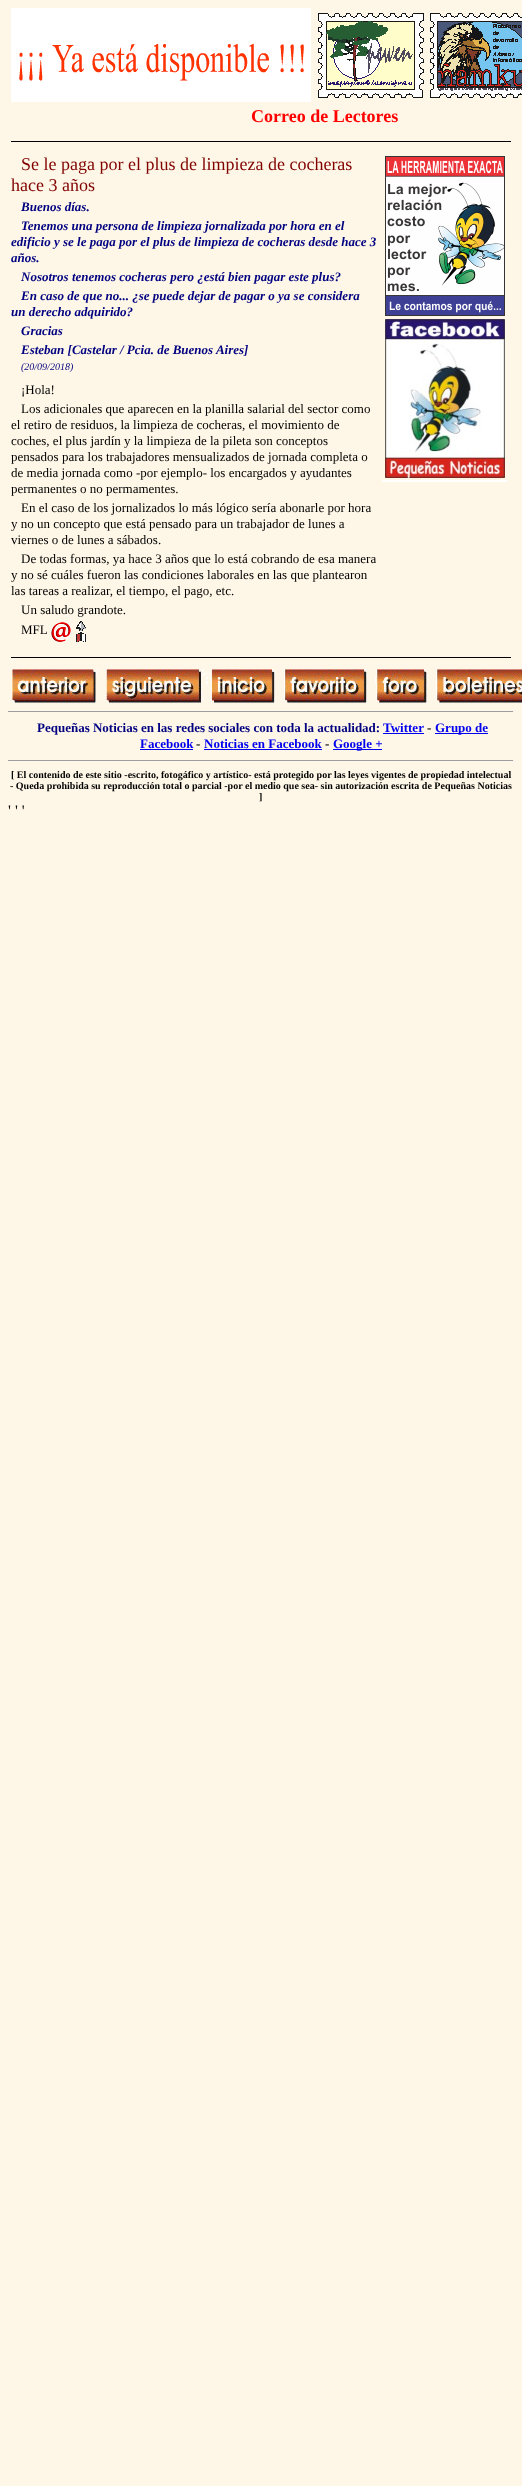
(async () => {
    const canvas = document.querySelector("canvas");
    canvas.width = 522;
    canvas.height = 2486;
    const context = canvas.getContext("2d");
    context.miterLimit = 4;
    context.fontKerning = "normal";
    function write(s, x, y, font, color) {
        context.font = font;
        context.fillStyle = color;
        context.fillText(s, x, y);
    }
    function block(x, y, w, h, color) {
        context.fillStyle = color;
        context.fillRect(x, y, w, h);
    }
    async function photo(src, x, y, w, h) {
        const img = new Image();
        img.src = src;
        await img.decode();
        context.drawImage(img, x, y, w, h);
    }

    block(0, 0, 522, 2486, "rgb(254, 247, 231)");
    await photo("media/1.png", 11, 8, 300, 94);
    await photo("media/2.png", 318, 13, 204, 85);
    write("Correo de Lectores", 251, 122, "bold 18px Liberation Serif", "rgb(255, 0, 0)");
    block(11, 141, 500, 1, "rgb(0, 0, 0)");
    write("Se le paga por el plus de limpieza de cocheras", 21, 170, "18px Liberation Serif", "rgb(128, 0, 0)");
    write("hace 3 años", 11, 191, "18px Liberation Serif", "rgb(128, 0, 0)");
    write("Buenos días.", 21, 211, "italic bold 13px Liberation Serif", "rgb(0, 0, 128)");
    write("Tenemos una persona de limpieza jornalizada por hora en el", 21, 230, "italic bold 13px Liberation Serif", "rgb(0, 0, 128)");
    write("edificio y se le paga por el plus de limpieza de cocheras desde hace 3", 11, 246, "italic bold 13px Liberation Serif", "rgb(0, 0, 128)");
    write("años.", 11, 262, "italic bold 13px Liberation Serif", "rgb(0, 0, 128)");
    write("Nosotros tenemos cocheras pero ¿está bien pagar este plus?", 21, 281, "italic bold 13px Liberation Serif", "rgb(0, 0, 128)");
    write("En caso de que no... ¿se puede dejar de pagar o ya se considera", 21, 300, "italic bold 13px Liberation Serif", "rgb(0, 0, 128)");
    write("un derecho adquirido?", 11, 316, "italic bold 13px Liberation Serif", "rgb(0, 0, 128)");
    write("Gracias", 21, 335, "italic bold 13px Liberation Serif", "rgb(0, 0, 128)");
    write("Esteban [Castelar / Pcia. de Buenos Aires]", 21, 354, "italic bold 13px Liberation Serif", "rgb(0, 0, 128)");
    write("(20/09/2018)", 21, 370, "italic 10px Liberation Serif", "rgb(0, 0, 128)");
    write("¡Hola!", 21, 394, "13px Liberation Serif", "rgb(0, 0, 0)");
    write("Los adicionales que aparecen en la planilla salarial del sector como", 21, 413, "13px Liberation Serif", "rgb(0, 0, 0)");
    write("el retiro de residuos, la limpieza de cocheras, el movimiento de", 11, 429, "13px Liberation Serif", "rgb(0, 0, 0)");
    write("coches, el plus jardín y la limpieza de la pileta son conceptos", 11, 445, "13px Liberation Serif", "rgb(0, 0, 0)");
    write("pensados para los trabajadores mensualizados de jornada completa o", 11, 461, "13px Liberation Serif", "rgb(0, 0, 0)");
    write("de media jornada como -por ejemplo- los encargados y ayudantes", 11, 477, "13px Liberation Serif", "rgb(0, 0, 0)");
    write("permanentes o no permamentes.", 11, 493, "13px Liberation Serif", "rgb(0, 0, 0)");
    write("En el caso de los jornalizados lo más lógico sería abonarle por hora", 21, 512, "13px Liberation Serif", "rgb(0, 0, 0)");
    write("y no un concepto que está pensado para un trabajador de lunes a", 11, 528, "13px Liberation Serif", "rgb(0, 0, 0)");
    write("viernes o de lunes a sábados.", 11, 544, "13px Liberation Serif", "rgb(0, 0, 0)");
    write("De todas formas, ya hace 3 años que lo está cobrando de esa manera", 21, 563, "13px Liberation Serif", "rgb(0, 0, 0)");
    write("y no sé cuáles fueron las condiciones laborales en las que plantearon", 11, 579, "13px Liberation Serif", "rgb(0, 0, 0)");
    write("las tareas a realizar, el tiempo, el pago, etc.", 11, 595, "13px Liberation Serif", "rgb(0, 0, 0)");
    write("Un saludo grandote.", 21, 614, "13px Liberation Serif", "rgb(0, 0, 0)");
    write("MFL", 21, 634, "13px Liberation Serif", "rgb(0, 0, 0)");
    await photo("media/3.png", 51, 622, 20, 20);
    await photo("media/4.png", 76, 621, 10, 21);
    await photo("media/5.png", 385, 156, 120, 160);
    await photo("media/6.png", 385, 319, 120, 159);
    block(382, 480, 125, 2, "rgb(255, 255, 255)");
    block(11, 657, 500, 1, "rgb(0, 0, 0)");
    await photo("media/7.png", 12, 669, 510, 34);
    block(8, 711, 506, 1, "rgb(159, 159, 159)");
    block(513, 711, 1, 1, "rgb(238, 238, 238)");
    write("Pequeñas Noticias en las redes sociales con toda la actualidad:", 37, 732, "bold 13px Liberation Serif", "rgb(0, 0, 128)");
    write("Twitter", 383, 732, "bold 13px Liberation Serif", "rgb(0, 0, 238)");
    block(383, 733, 41, 1, "rgb(0, 0, 238)");
    write("-", 427, 732, "bold 13px Liberation Serif", "rgb(0, 0, 0)");
    block(435, 733, 53, 1, "rgb(0, 0, 238)");
    write("Grupo de", 435, 732, "bold 13px Liberation Serif", "rgb(0, 0, 238)");
    write("Facebook", 140, 748, "bold 13px Liberation Serif", "rgb(0, 0, 238)");
    block(140, 749, 53, 1, "rgb(0, 0, 238)");
    write("-", 196, 748, "bold 13px Liberation Serif", "rgb(0, 0, 0)");
    write("Noticias en Facebook", 204, 748, "bold 13px Liberation Serif", "rgb(0, 0, 238)");
    block(204, 749, 118, 1, "rgb(0, 0, 238)");
    write("-", 325, 748, "bold 13px Liberation Serif", "rgb(0, 0, 0)");
    block(333, 749, 49, 1, "rgb(0, 0, 238)");
    write("Google +", 333, 748, "bold 13px Liberation Serif", "rgb(0, 0, 238)");
    block(8, 760, 506, 1, "rgb(159, 159, 159)");
    block(513, 760, 1, 1, "rgb(238, 238, 238)");
    write("[ El contenido de este sitio -escrito, fotogáfico y artístico- está protegido por las leyes vigentes de propiedad intelectual", 11, 778, "bold 10px Liberation Serif", "rgb(0, 0, 0)");
    write("- Queda prohibida su reproducción total o parcial -por el medio que sea- sin autorización escrita de Pequeñas Noticias", 10, 789, "bold 10px Liberation Serif", "rgb(0, 0, 0)");
    write("]", 259, 800, "bold 10px Liberation Serif", "rgb(0, 0, 0)");
    write("' ' '", 8, 816, "16px Liberation Serif", "rgb(0, 0, 0)");
})();
